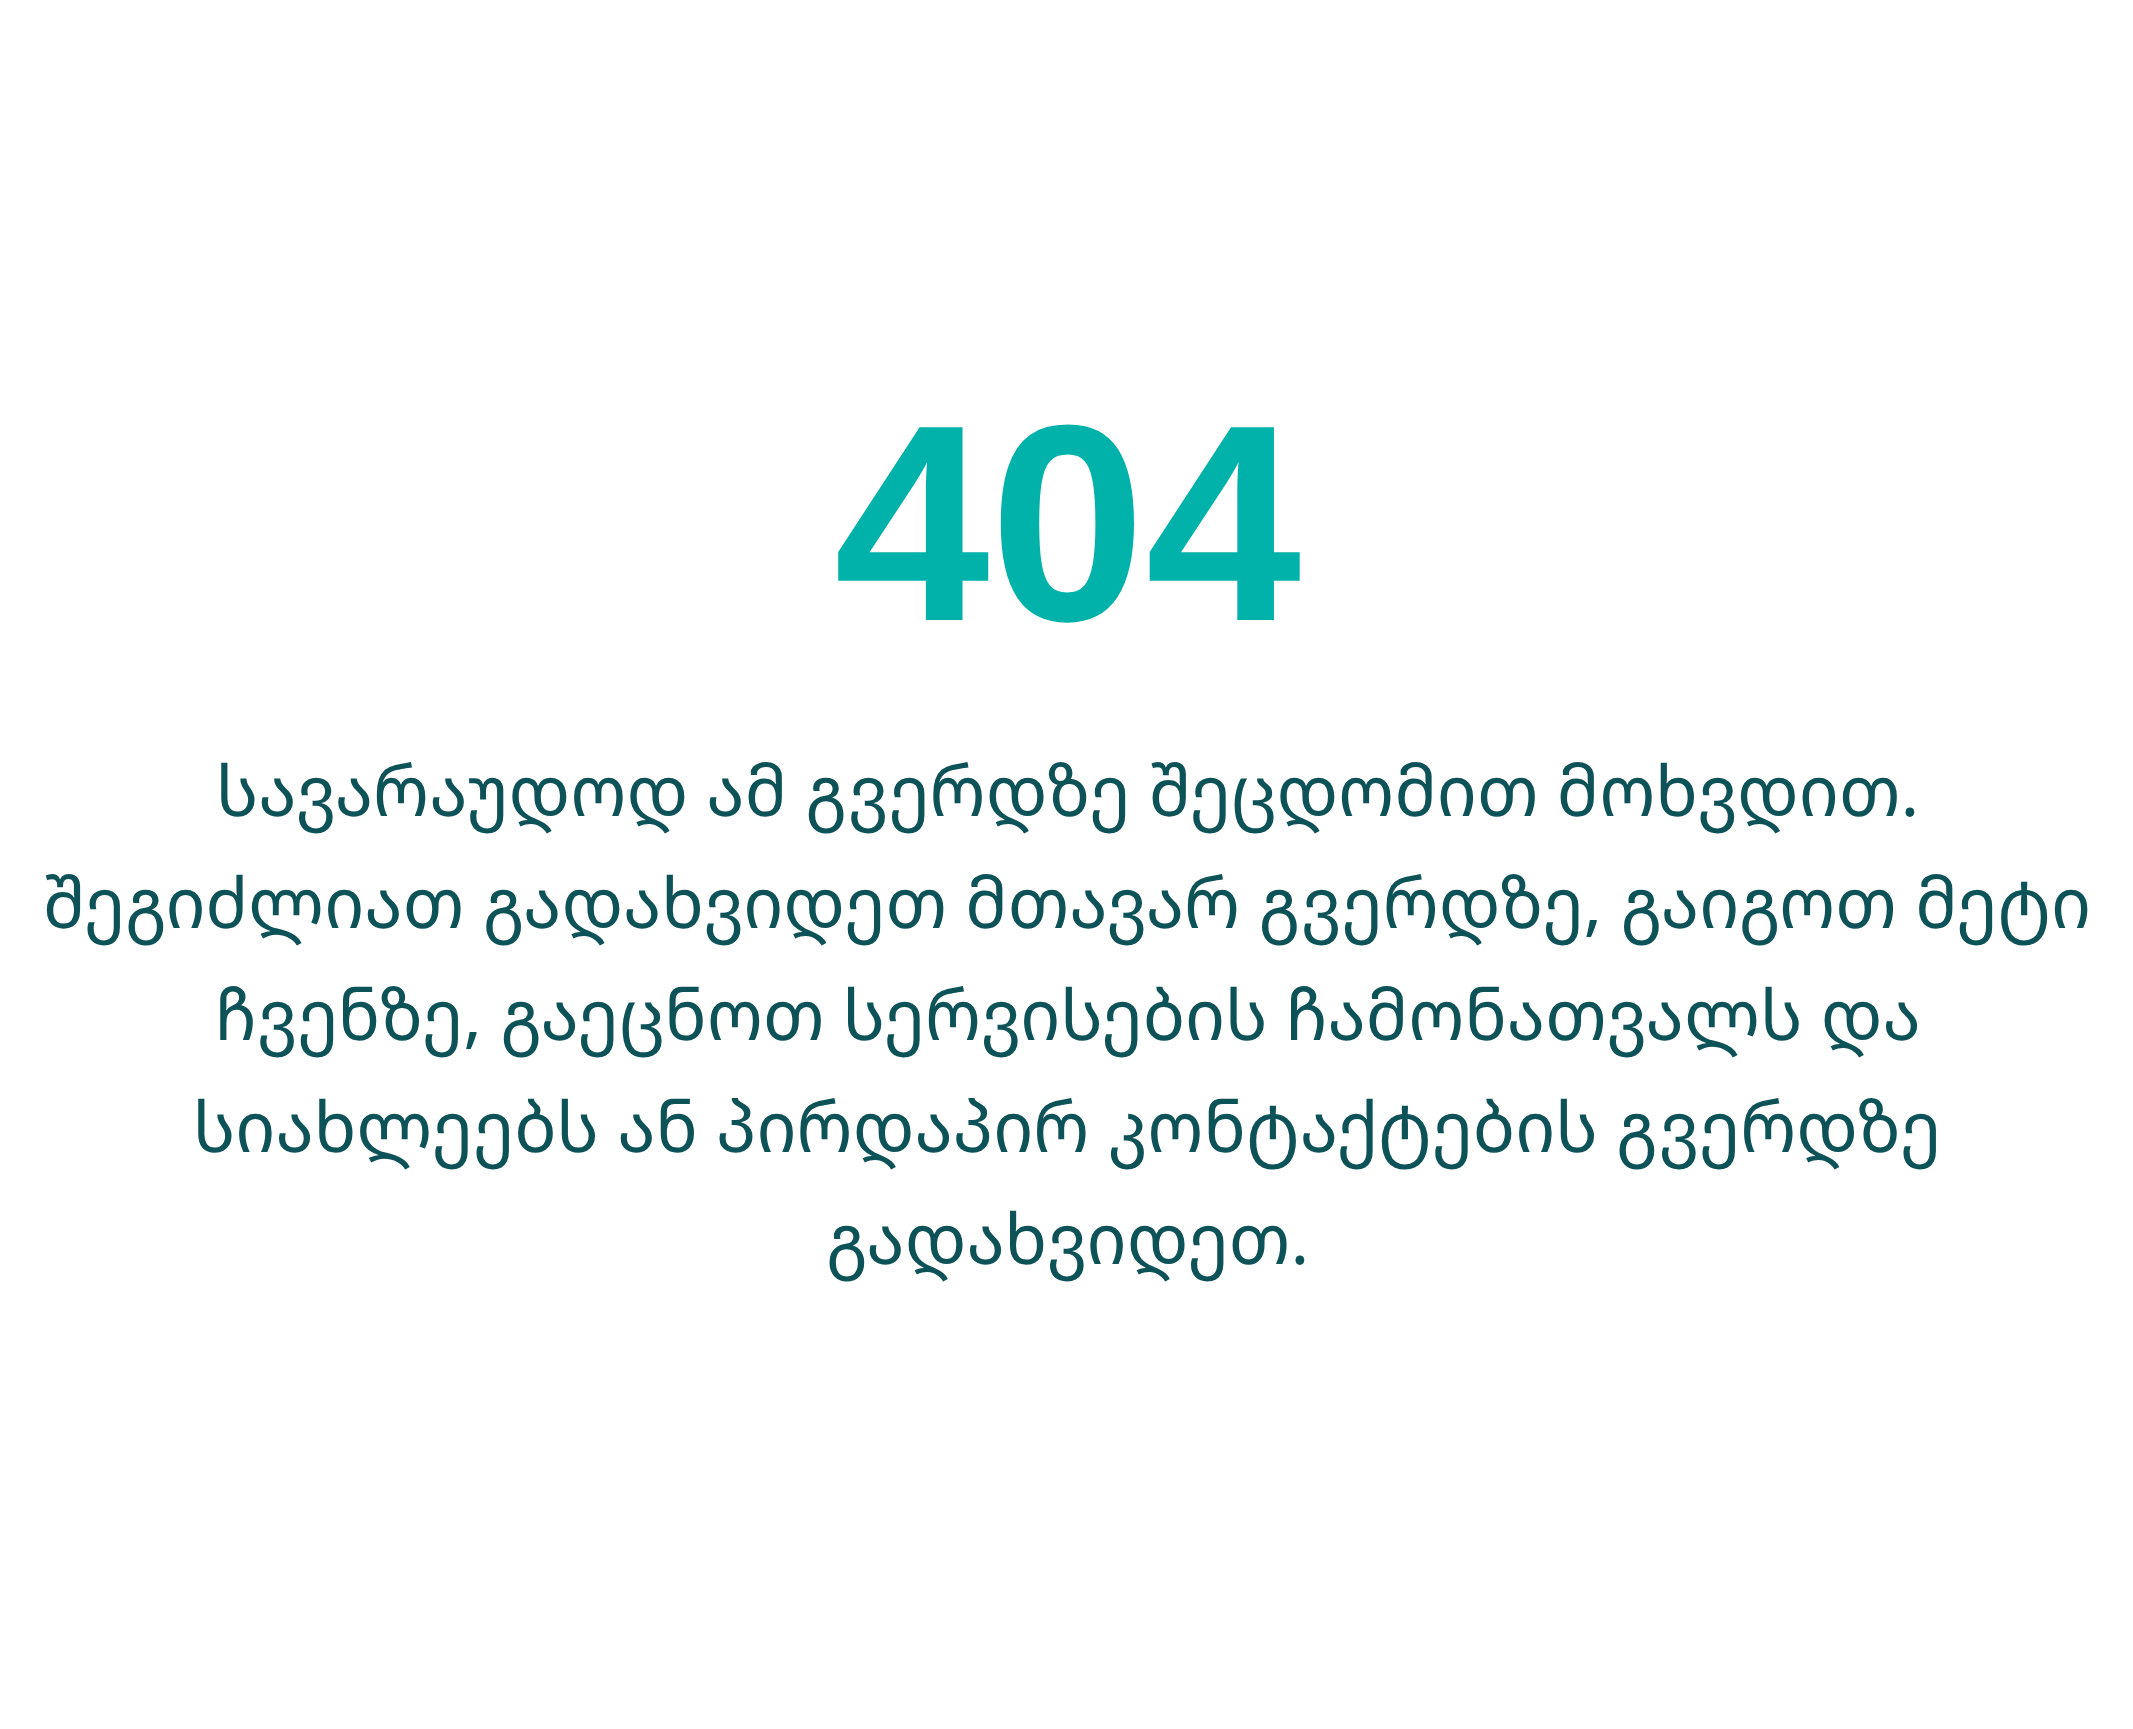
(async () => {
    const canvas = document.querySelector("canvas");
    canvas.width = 2133;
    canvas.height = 1729;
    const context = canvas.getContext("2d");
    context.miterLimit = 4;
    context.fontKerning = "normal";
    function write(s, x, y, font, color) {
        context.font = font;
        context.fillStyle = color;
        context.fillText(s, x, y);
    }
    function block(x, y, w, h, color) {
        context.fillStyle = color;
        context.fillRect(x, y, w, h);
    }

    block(0, 0, 2133, 1729, "rgb(255, 255, 255)");
    write("404", 834, 620, "bold 280px Liberation Sans", "rgb(0, 178, 169)");
    write("სავარაუდოდ ამ გვერდზე შეცდომით მოხვდით.", 216, 816, "70px Noto Sans Georgian", "rgb(13, 82, 87)");
    write("შეგიძლიათ გადახვიდეთ მთავარ გვერდზე, გაიგოთ მეტი", 43, 928, "70px Noto Sans Georgian", "rgb(13, 82, 87)");
    write("ჩვენზე, გაეცნოთ სერვისების ჩამონათვალს და", 215, 1040, "70px Noto Sans Georgian", "rgb(13, 82, 87)");
    write("სიახლეებს ან პირდაპირ კონტაქტების გვერდზე", 193, 1152, "70px Noto Sans Georgian", "rgb(13, 82, 87)");
    write("გადახვიდეთ.", 826, 1264, "70px Noto Sans Georgian", "rgb(13, 82, 87)");
})();
